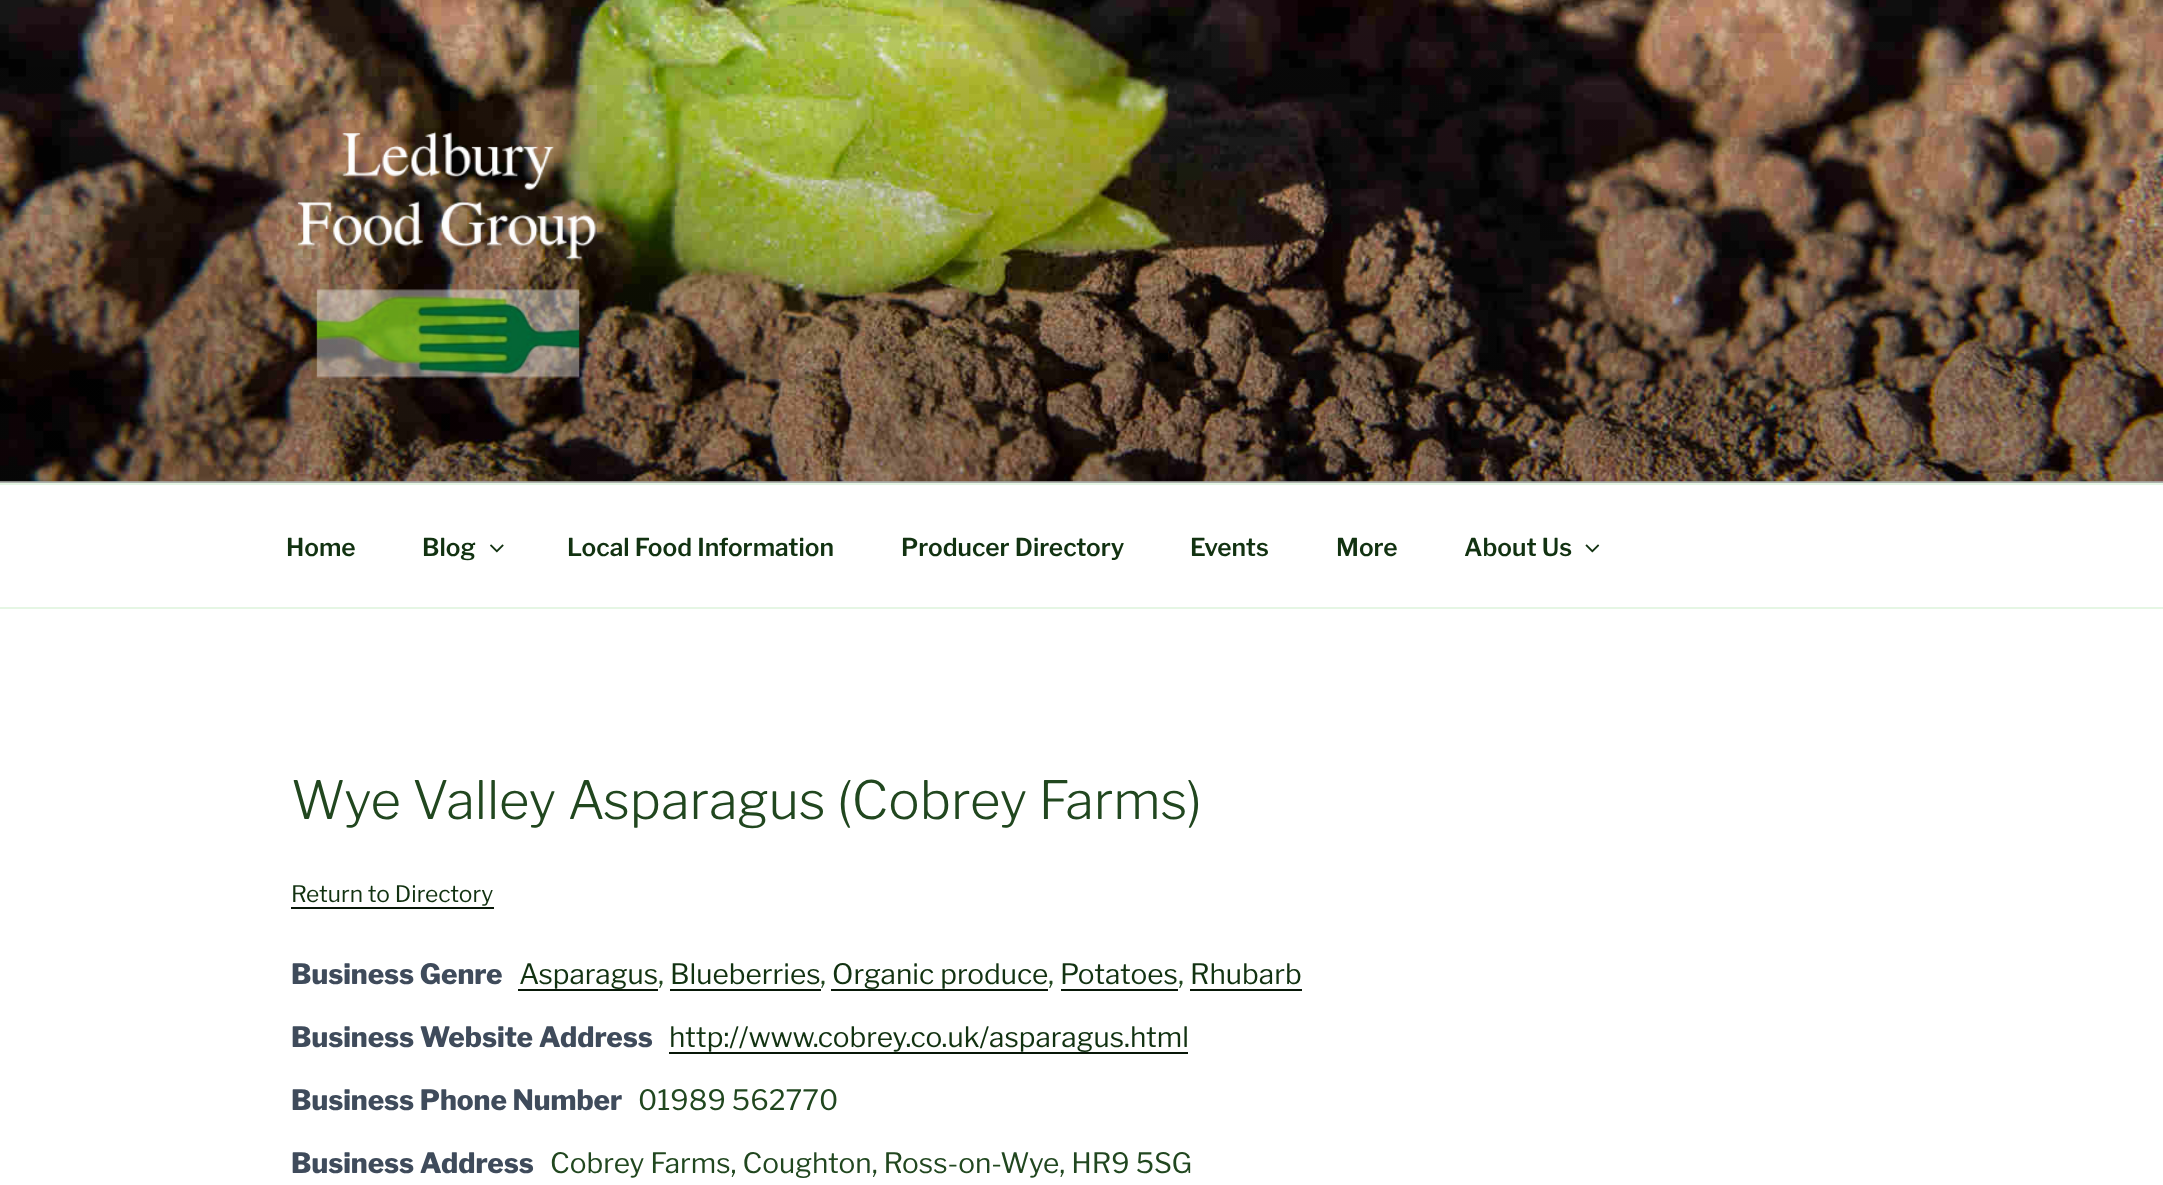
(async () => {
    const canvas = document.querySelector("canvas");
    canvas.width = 2163;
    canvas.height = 1185;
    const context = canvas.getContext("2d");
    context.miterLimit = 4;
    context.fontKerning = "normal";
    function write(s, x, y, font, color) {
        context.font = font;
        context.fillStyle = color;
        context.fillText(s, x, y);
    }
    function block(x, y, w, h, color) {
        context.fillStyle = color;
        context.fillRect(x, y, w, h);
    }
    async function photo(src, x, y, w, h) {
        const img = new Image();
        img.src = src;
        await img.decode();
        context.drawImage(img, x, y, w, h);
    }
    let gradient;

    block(0, 0, 2163, 1185, "rgb(255, 255, 255)");
    block(0, 481, 2163, 2, "rgb(248, 252, 247)");
    await photo("media/1.png", 0, 0, 2163, 482);
    gradient = context.createLinearGradient(1082, 0, 1082, 483);
    gradient.addColorStop(0, "rgba(0, 0, 0, 0)");
    gradient.addColorStop(0.75, "rgba(0, 0, 0, 0.3)");
    gradient.addColorStop(1, "rgba(0, 0, 0, 0.3)");
    context.fillStyle = gradient;
    context.fillRect(0, 26, 2163, 457);
    await photo("media/2.png", 297, 131, 299, 247);
    block(0, 483, 2163, 2, "rgb(229, 246, 228)");
    block(0, 607, 2163, 2, "rgb(229, 246, 228)");
    write("Home", 286, 556, "100 24.5px 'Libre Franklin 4'", "rgb(18, 50, 17)");
    write("Blog", 422, 556, "100 24.5px 'Libre Franklin 4'", "rgb(18, 50, 17)");
    await photo("media/3.png", 490, 544, 14, 9);
    write("Local Food Information", 567, 556, "100 24.5px 'Libre Franklin 4'", "rgb(18, 50, 17)");
    write("Producer Directory", 901, 556, "100 24.5px 'Libre Franklin 4'", "rgb(18, 50, 17)");
    write("Events", 1190, 556, "100 24.5px 'Libre Franklin 4'", "rgb(18, 50, 17)");
    write("More", 1336, 556, "100 24.5px 'Libre Franklin 4'", "rgb(18, 50, 17)");
    write("About Us", 1464, 556, "100 24.5px 'Libre Franklin 4'", "rgb(18, 50, 17)");
    await photo("media/4.png", 1585, 544, 15, 9);
    write("Wye Valley Asparagus (Cobrey Farms)", 291, 819, "100 52.5px Libre Franklin", "rgb(33, 71, 31)");
    write("Return to Directory", 291, 902, "100 22.75px 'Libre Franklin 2'", "rgb(18, 50, 17)");
    block(291, 907, 203, 2, "rgb(8, 23, 8)");
    write("Business Genre", 291, 984, "100 28px 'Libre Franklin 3'", "rgb(63, 75, 91)");
    write("Asparagus", 519, 984, "100 28px 'Libre Franklin 2'", "rgb(18, 50, 17)");
    write(",", 658, 984, "100 28px 'Libre Franklin 2'", "rgb(33, 71, 31)");
    block(518, 989, 140, 2, "rgb(8, 23, 8)");
    write("Blueberries", 670, 984, "100 28px 'Libre Franklin 2'", "rgb(18, 50, 17)");
    write(",", 820, 984, "100 28px 'Libre Franklin 2'", "rgb(33, 71, 31)");
    block(670, 989, 151, 2, "rgb(8, 23, 8)");
    write("Organic produce", 832, 984, "100 28px 'Libre Franklin 2'", "rgb(18, 50, 17)");
    write(",", 1048, 984, "100 28px 'Libre Franklin 2'", "rgb(33, 71, 31)");
    block(831, 989, 217, 2, "rgb(8, 23, 8)");
    write("Potatoes", 1060, 984, "100 28px 'Libre Franklin 2'", "rgb(18, 50, 17)");
    write(",", 1178, 984, "100 28px 'Libre Franklin 2'", "rgb(33, 71, 31)");
    block(1061, 989, 117, 2, "rgb(8, 23, 8)");
    block(1190, 989, 112, 2, "rgb(8, 23, 8)");
    write("Rhubarb", 1190, 984, "100 28px 'Libre Franklin 2'", "rgb(18, 50, 17)");
    write("Business Website Address", 291, 1047, "100 28px 'Libre Franklin 3'", "rgb(63, 75, 91)");
    write("http://www.cobrey.co.uk/asparagus.html", 669, 1047, "100 28px 'Libre Franklin 2'", "rgb(18, 50, 17)");
    block(669, 1052, 519, 2, "rgb(8, 23, 8)");
    write("Business Phone Number", 291, 1110, "100 28px 'Libre Franklin 3'", "rgb(63, 75, 91)");
    write("01989 562770", 638, 1110, "100 28px 'Libre Franklin 2'", "rgb(33, 71, 31)");
    write("Business Address", 291, 1173, "100 28px 'Libre Franklin 3'", "rgb(63, 75, 91)");
    write("Cobrey Farms, Coughton, Ross-on-Wye, HR9 5SG", 550, 1173, "100 28px 'Libre Franklin 2'", "rgb(33, 71, 31)");
})();
